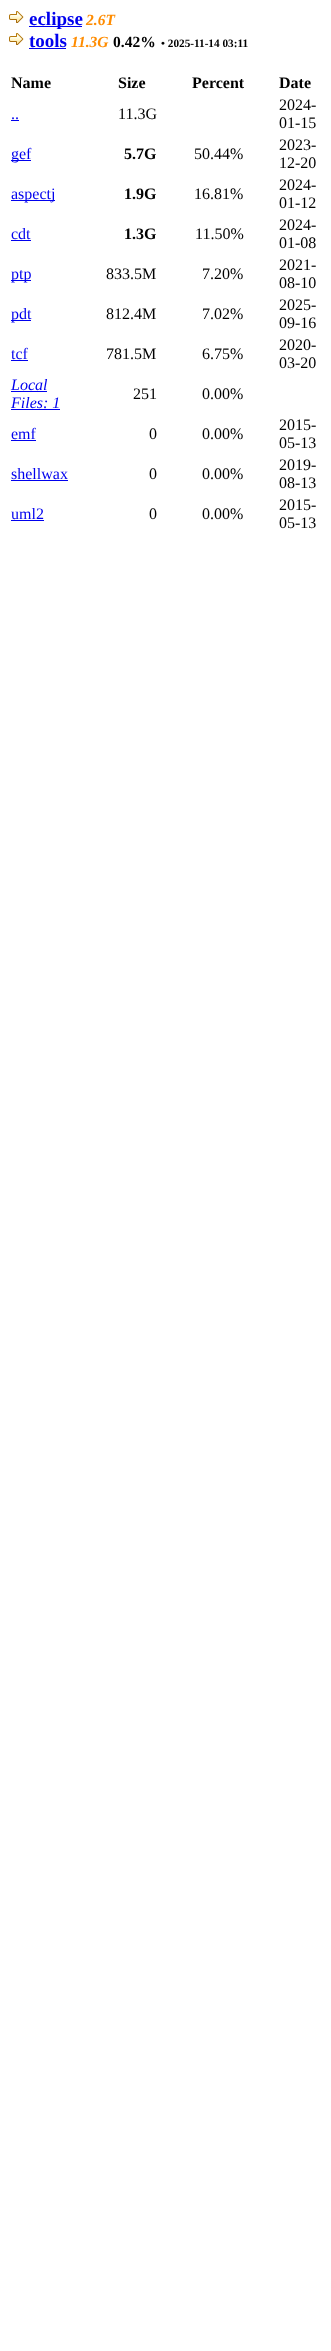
(async () => {
    const canvas = document.querySelector("canvas");
    canvas.width = 331;
    canvas.height = 2351;
    const context = canvas.getContext("2d");
    context.miterLimit = 4;
    context.fontKerning = "normal";
    function write(s, x, y, font, color) {
        context.font = font;
        context.fillStyle = color;
        context.fillText(s, x, y);
    }
    function block(x, y, w, h, color) {
        context.fillStyle = color;
        context.fillRect(x, y, w, h);
    }
    async function photo(src, x, y, w, h) {
        const img = new Image();
        img.src = src;
        await img.decode();
        context.drawImage(img, x, y, w, h);
    }

    block(0, 0, 331, 2351, "rgb(255, 255, 255)");
    await photo("media/1.png", 9, 11, 15, 12);
    block(29, 26, 53, 1, "rgb(0, 0, 238)");
    write("eclipse", 29, 25, "bold 19px Liberation Serif", "rgb(0, 0, 238)");
    write("2.6T", 86, 25, "italic bold 15.5px Liberation Serif", "rgb(255, 140, 0)");
    await photo("media/1.png", 9, 33, 15, 12);
    write("tools", 29, 47, "bold 19px Liberation Serif", "rgb(0, 0, 238)");
    block(29, 48, 37, 1, "rgb(0, 0, 238)");
    write("11.3G", 71, 47, "italic bold 15.5px Liberation Serif", "rgb(255, 140, 0)");
    write("0.42%", 113, 47, "bold 15.5px Liberation Serif", "rgb(0, 0, 0)");
    write("• 2025-11-14 03:11", 161, 47, "bold 11.25px Liberation Serif", "rgb(0, 0, 0)");
    write("Name", 11, 88, "bold 16px Liberation Serif", "rgb(0, 0, 0)");
    write("Size", 118, 88, "bold 16px Liberation Serif", "rgb(0, 0, 0)");
    write("Percent", 192, 88, "bold 16px Liberation Serif", "rgb(0, 0, 0)");
    write("Date", 279, 88, "bold 16px Liberation Serif", "rgb(0, 0, 0)");
    write("..", 11, 119, "16px Liberation Serif", "rgb(0, 0, 238)");
    block(11, 120, 8, 1, "rgb(0, 0, 238)");
    write("11.3G", 118, 119, "16px Liberation Serif", "rgb(0, 0, 0)");
    write("2024-", 279, 110, "16px Liberation Serif", "rgb(0, 0, 0)");
    write("01-15", 279, 128, "16px Liberation Serif", "rgb(0, 0, 0)");
    block(11, 160, 20, 1, "rgb(0, 0, 238)");
    write("gef", 11, 159, "16px Liberation Serif", "rgb(0, 0, 238)");
    write("5.7G", 124, 159, "bold 16px Liberation Serif", "rgb(0, 0, 0)");
    write("50.44%", 194, 159, "16px Liberation Serif", "rgb(0, 0, 0)");
    write("2023-", 279, 150, "16px Liberation Serif", "rgb(0, 0, 0)");
    write("12-20", 279, 168, "16px Liberation Serif", "rgb(0, 0, 0)");
    block(11, 200, 44, 1, "rgb(0, 0, 238)");
    write("aspectj", 11, 199, "16px Liberation Serif", "rgb(0, 0, 238)");
    write("1.9G", 124, 199, "bold 16px Liberation Serif", "rgb(0, 0, 0)");
    write("16.81%", 194, 199, "16px Liberation Serif", "rgb(0, 0, 0)");
    write("2024-", 279, 190, "16px Liberation Serif", "rgb(0, 0, 0)");
    write("01-12", 279, 208, "16px Liberation Serif", "rgb(0, 0, 0)");
    write("cdt", 11, 239, "16px Liberation Serif", "rgb(0, 0, 238)");
    block(11, 240, 20, 1, "rgb(0, 0, 238)");
    write("1.3G", 124, 239, "bold 16px Liberation Serif", "rgb(0, 0, 0)");
    write("11.50%", 195, 239, "16px Liberation Serif", "rgb(0, 0, 0)");
    write("2024-", 279, 230, "16px Liberation Serif", "rgb(0, 0, 0)");
    write("01-08", 279, 248, "16px Liberation Serif", "rgb(0, 0, 0)");
    block(11, 280, 20, 1, "rgb(0, 0, 238)");
    write("ptp", 11, 279, "16px Liberation Serif", "rgb(0, 0, 238)");
    write("833.5M", 106, 279, "16px Liberation Serif", "rgb(0, 0, 0)");
    write("7.20%", 202, 279, "16px Liberation Serif", "rgb(0, 0, 0)");
    write("2021-", 279, 270, "16px Liberation Serif", "rgb(0, 0, 0)");
    write("08-10", 279, 288, "16px Liberation Serif", "rgb(0, 0, 0)");
    block(11, 320, 20, 1, "rgb(0, 0, 238)");
    write("pdt", 11, 319, "16px Liberation Serif", "rgb(0, 0, 238)");
    write("812.4M", 106, 319, "16px Liberation Serif", "rgb(0, 0, 0)");
    write("7.02%", 202, 319, "16px Liberation Serif", "rgb(0, 0, 0)");
    write("2025-", 279, 310, "16px Liberation Serif", "rgb(0, 0, 0)");
    write("09-16", 279, 328, "16px Liberation Serif", "rgb(0, 0, 0)");
    write("tcf", 11, 359, "16px Liberation Serif", "rgb(0, 0, 238)");
    block(11, 360, 17, 1, "rgb(0, 0, 238)");
    write("781.5M", 106, 359, "16px Liberation Serif", "rgb(0, 0, 0)");
    write("6.75%", 202, 359, "16px Liberation Serif", "rgb(0, 0, 0)");
    write("2020-", 279, 350, "16px Liberation Serif", "rgb(0, 0, 0)");
    write("03-20", 279, 368, "16px Liberation Serif", "rgb(0, 0, 0)");
    write("Local", 11, 390, "italic 16px Liberation Serif", "rgb(0, 0, 238)");
    block(11, 391, 36, 1, "rgb(0, 0, 238)");
    write("Files: 1", 11, 408, "italic 16px Liberation Serif", "rgb(0, 0, 238)");
    block(11, 409, 49, 1, "rgb(0, 0, 238)");
    write("251", 133, 399, "16px Liberation Serif", "rgb(0, 0, 0)");
    write("0.00%", 202, 399, "16px Liberation Serif", "rgb(0, 0, 0)");
    write("emf", 11, 439, "16px Liberation Serif", "rgb(0, 0, 238)");
    block(11, 440, 25, 1, "rgb(0, 0, 238)");
    write("0", 149, 439, "16px Liberation Serif", "rgb(0, 0, 0)");
    write("0.00%", 202, 439, "16px Liberation Serif", "rgb(0, 0, 0)");
    write("2015-", 279, 430, "16px Liberation Serif", "rgb(0, 0, 0)");
    write("05-13", 279, 448, "16px Liberation Serif", "rgb(0, 0, 0)");
    write("shellwax", 11, 479, "16px Liberation Serif", "rgb(0, 0, 238)");
    block(11, 480, 57, 1, "rgb(0, 0, 238)");
    write("0", 149, 479, "16px Liberation Serif", "rgb(0, 0, 0)");
    write("0.00%", 202, 479, "16px Liberation Serif", "rgb(0, 0, 0)");
    write("2019-", 279, 470, "16px Liberation Serif", "rgb(0, 0, 0)");
    write("08-13", 279, 488, "16px Liberation Serif", "rgb(0, 0, 0)");
    write("uml2", 11, 519, "16px Liberation Serif", "rgb(0, 0, 238)");
    block(11, 520, 33, 1, "rgb(0, 0, 238)");
    write("0", 149, 519, "16px Liberation Serif", "rgb(0, 0, 0)");
    write("0.00%", 202, 519, "16px Liberation Serif", "rgb(0, 0, 0)");
    write("2015-", 279, 510, "16px Liberation Serif", "rgb(0, 0, 0)");
    write("05-13", 279, 528, "16px Liberation Serif", "rgb(0, 0, 0)");
})();
